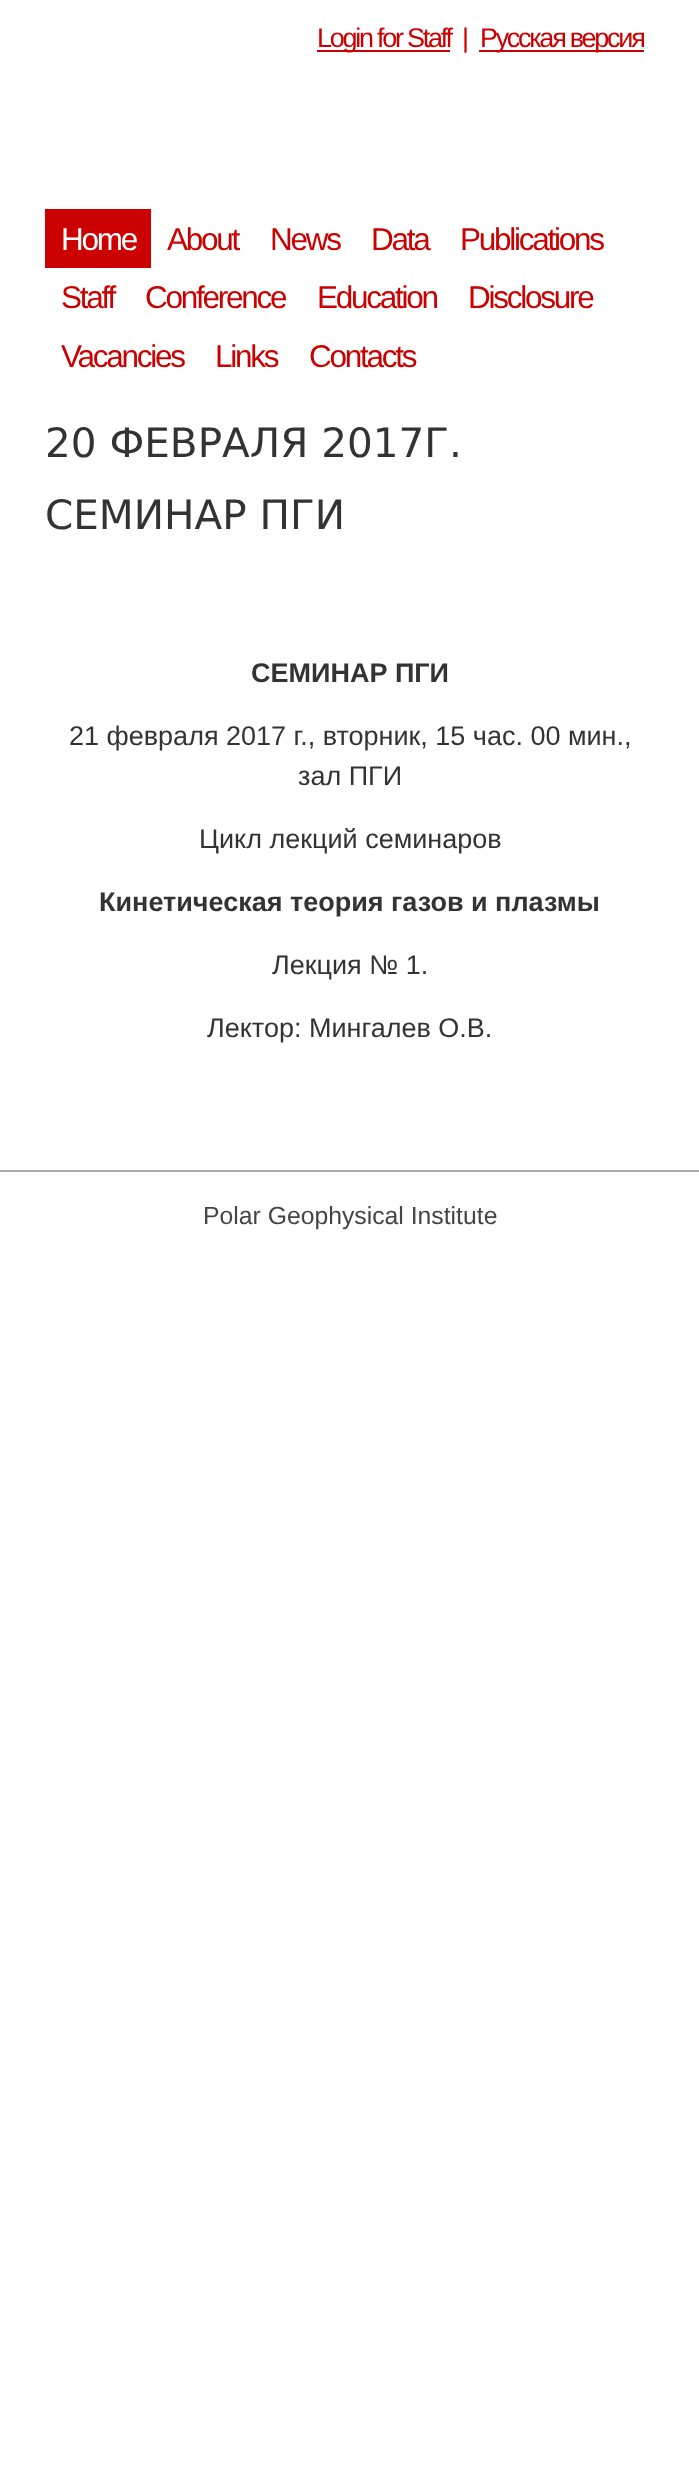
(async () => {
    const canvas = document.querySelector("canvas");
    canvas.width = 699;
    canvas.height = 2490;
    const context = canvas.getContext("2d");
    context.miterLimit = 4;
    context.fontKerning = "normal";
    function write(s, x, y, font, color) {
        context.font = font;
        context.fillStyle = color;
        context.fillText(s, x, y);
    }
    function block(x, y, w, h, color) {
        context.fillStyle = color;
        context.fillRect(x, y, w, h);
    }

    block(0, 0, 699, 2490, "rgb(255, 255, 255)");
    block(317, 50, 133, 2, "rgb(204, 0, 0)");
    context.letterSpacing = "-2.25px";
    write("Login for Staff", 317, 47, "27px Liberation Sans", "rgb(204, 0, 0)");
    context.letterSpacing = "0px";
    write("|", 462, 47, "27px Liberation Sans", "rgb(204, 0, 0)");
    block(479, 50, 165, 2, "rgb(204, 0, 0)");
    context.letterSpacing = "-2.25px";
    write("Русская версия", 480, 47, "27px Liberation Sans", "rgb(204, 0, 0)");
    block(45, 209, 106, 59, "rgb(204, 0, 0)");
    write("Home", 61, 250, "31.5px Liberation Sans", "rgb(255, 255, 255)");
    write("About", 167, 250, "31.5px Liberation Sans", "rgb(204, 0, 0)");
    write("News", 270, 250, "31.5px Liberation Sans", "rgb(204, 0, 0)");
    write("Data", 371, 250, "31.5px Liberation Sans", "rgb(204, 0, 0)");
    write("Publications", 460, 250, "31.5px Liberation Sans", "rgb(204, 0, 0)");
    write("Staff", 61, 308, "31.5px Liberation Sans", "rgb(204, 0, 0)");
    write("Conference", 145, 308, "31.5px Liberation Sans", "rgb(204, 0, 0)");
    write("Education", 317, 308, "31.5px Liberation Sans", "rgb(204, 0, 0)");
    write("Disclosure", 468, 308, "31.5px Liberation Sans", "rgb(204, 0, 0)");
    write("Vacancies", 61, 367, "31.5px Liberation Sans", "rgb(204, 0, 0)");
    write("Links", 215, 367, "31.5px Liberation Sans", "rgb(204, 0, 0)");
    write("Contacts", 309, 367, "31.5px Liberation Sans", "rgb(204, 0, 0)");
    context.letterSpacing = "0px";
    write("20 ФЕВРАЛЯ 2017Г.", 45, 457, "40.5px DejaVu Sans", "rgb(51, 51, 51)");
    write("СЕМИНАР ПГИ", 45, 529, "40.5px DejaVu Sans", "rgb(51, 51, 51)");
    write("СЕМИНАР ПГИ", 251, 682, "bold 27px Liberation Sans", "rgb(51, 51, 51)");
    write("21 февраля 2017 г., вторник, 15 час. 00 мин.,", 69, 745, "27px Liberation Sans", "rgb(51, 51, 51)");
    write("зал ПГИ", 298, 785, "27px Liberation Sans", "rgb(51, 51, 51)");
    write("Цикл лекций семинаров", 199, 848, "27px Liberation Sans", "rgb(51, 51, 51)");
    write("Кинетическая теория газов и плазмы", 99, 911, "bold 27px Liberation Sans", "rgb(51, 51, 51)");
    write("Лекция № 1.", 272, 974, "27px Liberation Sans", "rgb(51, 51, 51)");
    write("Лектор: Мингалев О.В.", 207, 1037, "27px Liberation Sans", "rgb(51, 51, 51)");
    block(0, 1170, 699, 2, "rgb(170, 170, 170)");
    write("Polar Geophysical Institute", 203, 1224, "24.75px Liberation Sans", "rgb(68, 68, 68)");
})();
